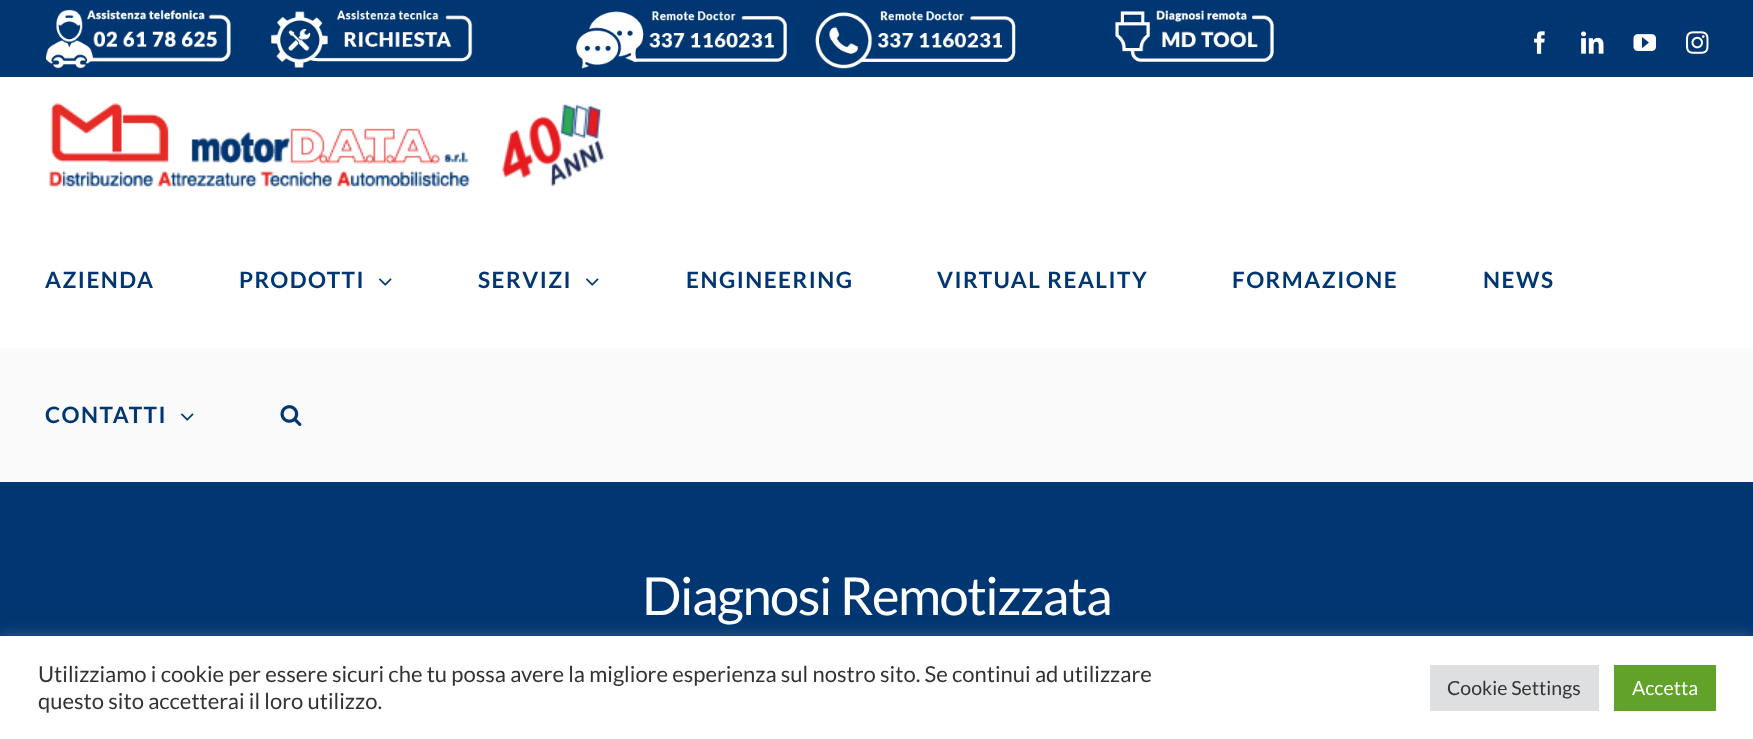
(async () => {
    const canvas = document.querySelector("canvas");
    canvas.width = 1753;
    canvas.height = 739;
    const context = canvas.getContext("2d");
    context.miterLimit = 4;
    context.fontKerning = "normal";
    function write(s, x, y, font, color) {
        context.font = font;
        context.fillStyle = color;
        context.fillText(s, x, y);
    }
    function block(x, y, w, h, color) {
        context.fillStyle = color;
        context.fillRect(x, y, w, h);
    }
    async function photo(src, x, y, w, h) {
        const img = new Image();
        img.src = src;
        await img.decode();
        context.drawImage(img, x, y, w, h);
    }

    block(0, 0, 1753, 739, "rgb(250, 250, 250)");
    block(0, 0, 1753, 77, "rgb(0, 54, 113)");
    await photo("media/1.png", 45, 9, 186, 60);
    await photo("media/2.png", 271, 10, 202, 58);
    await photo("media/3.png", 576, 11, 211, 58);
    await photo("media/4.png", 815, 11, 201, 58);
    await photo("media/5.png", 1115, 10, 159, 52);
    await photo("media/6.png", 1534, 31, 11, 23);
    await photo("media/7.png", 1581, 31, 23, 23);
    await photo("media/8.png", 1633, 34, 23, 17);
    await photo("media/9.png", 1686, 31, 23, 23);
    block(0, 77, 1753, 271, "rgb(255, 255, 255)");
    await photo("media/10.png", 49, 103, 556, 84);
    context.letterSpacing = "1.5px";
    write("AZIENDA", 45, 288, "bold 22.5px Lato", "rgb(0, 54, 113)");
    write("PRODOTTI", 239, 288, "bold 22.5px Lato", "rgb(0, 54, 113)");
    await photo("media/11.png", 379, 278, 13, 8);
    write("SERVIZI", 478, 288, "bold 22.5px Lato", "rgb(0, 54, 113)");
    await photo("media/11.png", 586, 278, 13, 8);
    write("ENGINEERING", 686, 288, "bold 22.5px Lato", "rgb(0, 54, 113)");
    write("VIRTUAL REALITY", 937, 288, "bold 22.5px Lato", "rgb(0, 54, 113)");
    write("FORMAZIONE", 1232, 288, "bold 22.5px Lato", "rgb(0, 54, 113)");
    write("NEWS", 1483, 288, "bold 22.5px Lato", "rgb(0, 54, 113)");
    write("CONTATTI", 45, 423, "bold 22.5px Lato", "rgb(0, 54, 113)");
    await photo("media/12.png", 181, 413, 13, 8);
    await photo("media/13.png", 280, 405, 22, 21);
    block(0, 482, 1753, 154, "rgb(0, 54, 113)");
    context.letterSpacing = "-1.5px";
    write("Diagnosi Remotizzata", 642, 615, "52.5px Lato", "rgb(255, 255, 255)");
    context.fillStyle = "rgba(172, 171, 171, 0.3)";
    context.filter = "blur(7.5px)";
    context.beginPath();
    context.rect(0, 635, 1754, 103);
    context.fill();
    context.filter = "none";
    block(0, 636, 1753, 103, "rgb(255, 255, 255)");
    context.letterSpacing = "0px";
    write("Utilizziamo i cookie per essere sicuri che tu possa avere la migliore esperienza sul nostro sito. Se continui ad utilizzare", 38, 682, "22px Lato", "rgb(51, 51, 51)");
    write("questo sito accetterai il loro utilizzo.", 38, 709, "22px Lato", "rgb(51, 51, 51)");
    block(1430, 665, 169, 46, "rgb(222, 223, 224)");
    write("Cookie Settings", 1447, 695, "19.5px Lato", "rgb(51, 51, 51)");
    block(1614, 665, 102, 46, "rgb(97, 162, 41)");
    write("Accetta", 1632, 695, "19.5px Lato", "rgb(255, 255, 255)");
})();
